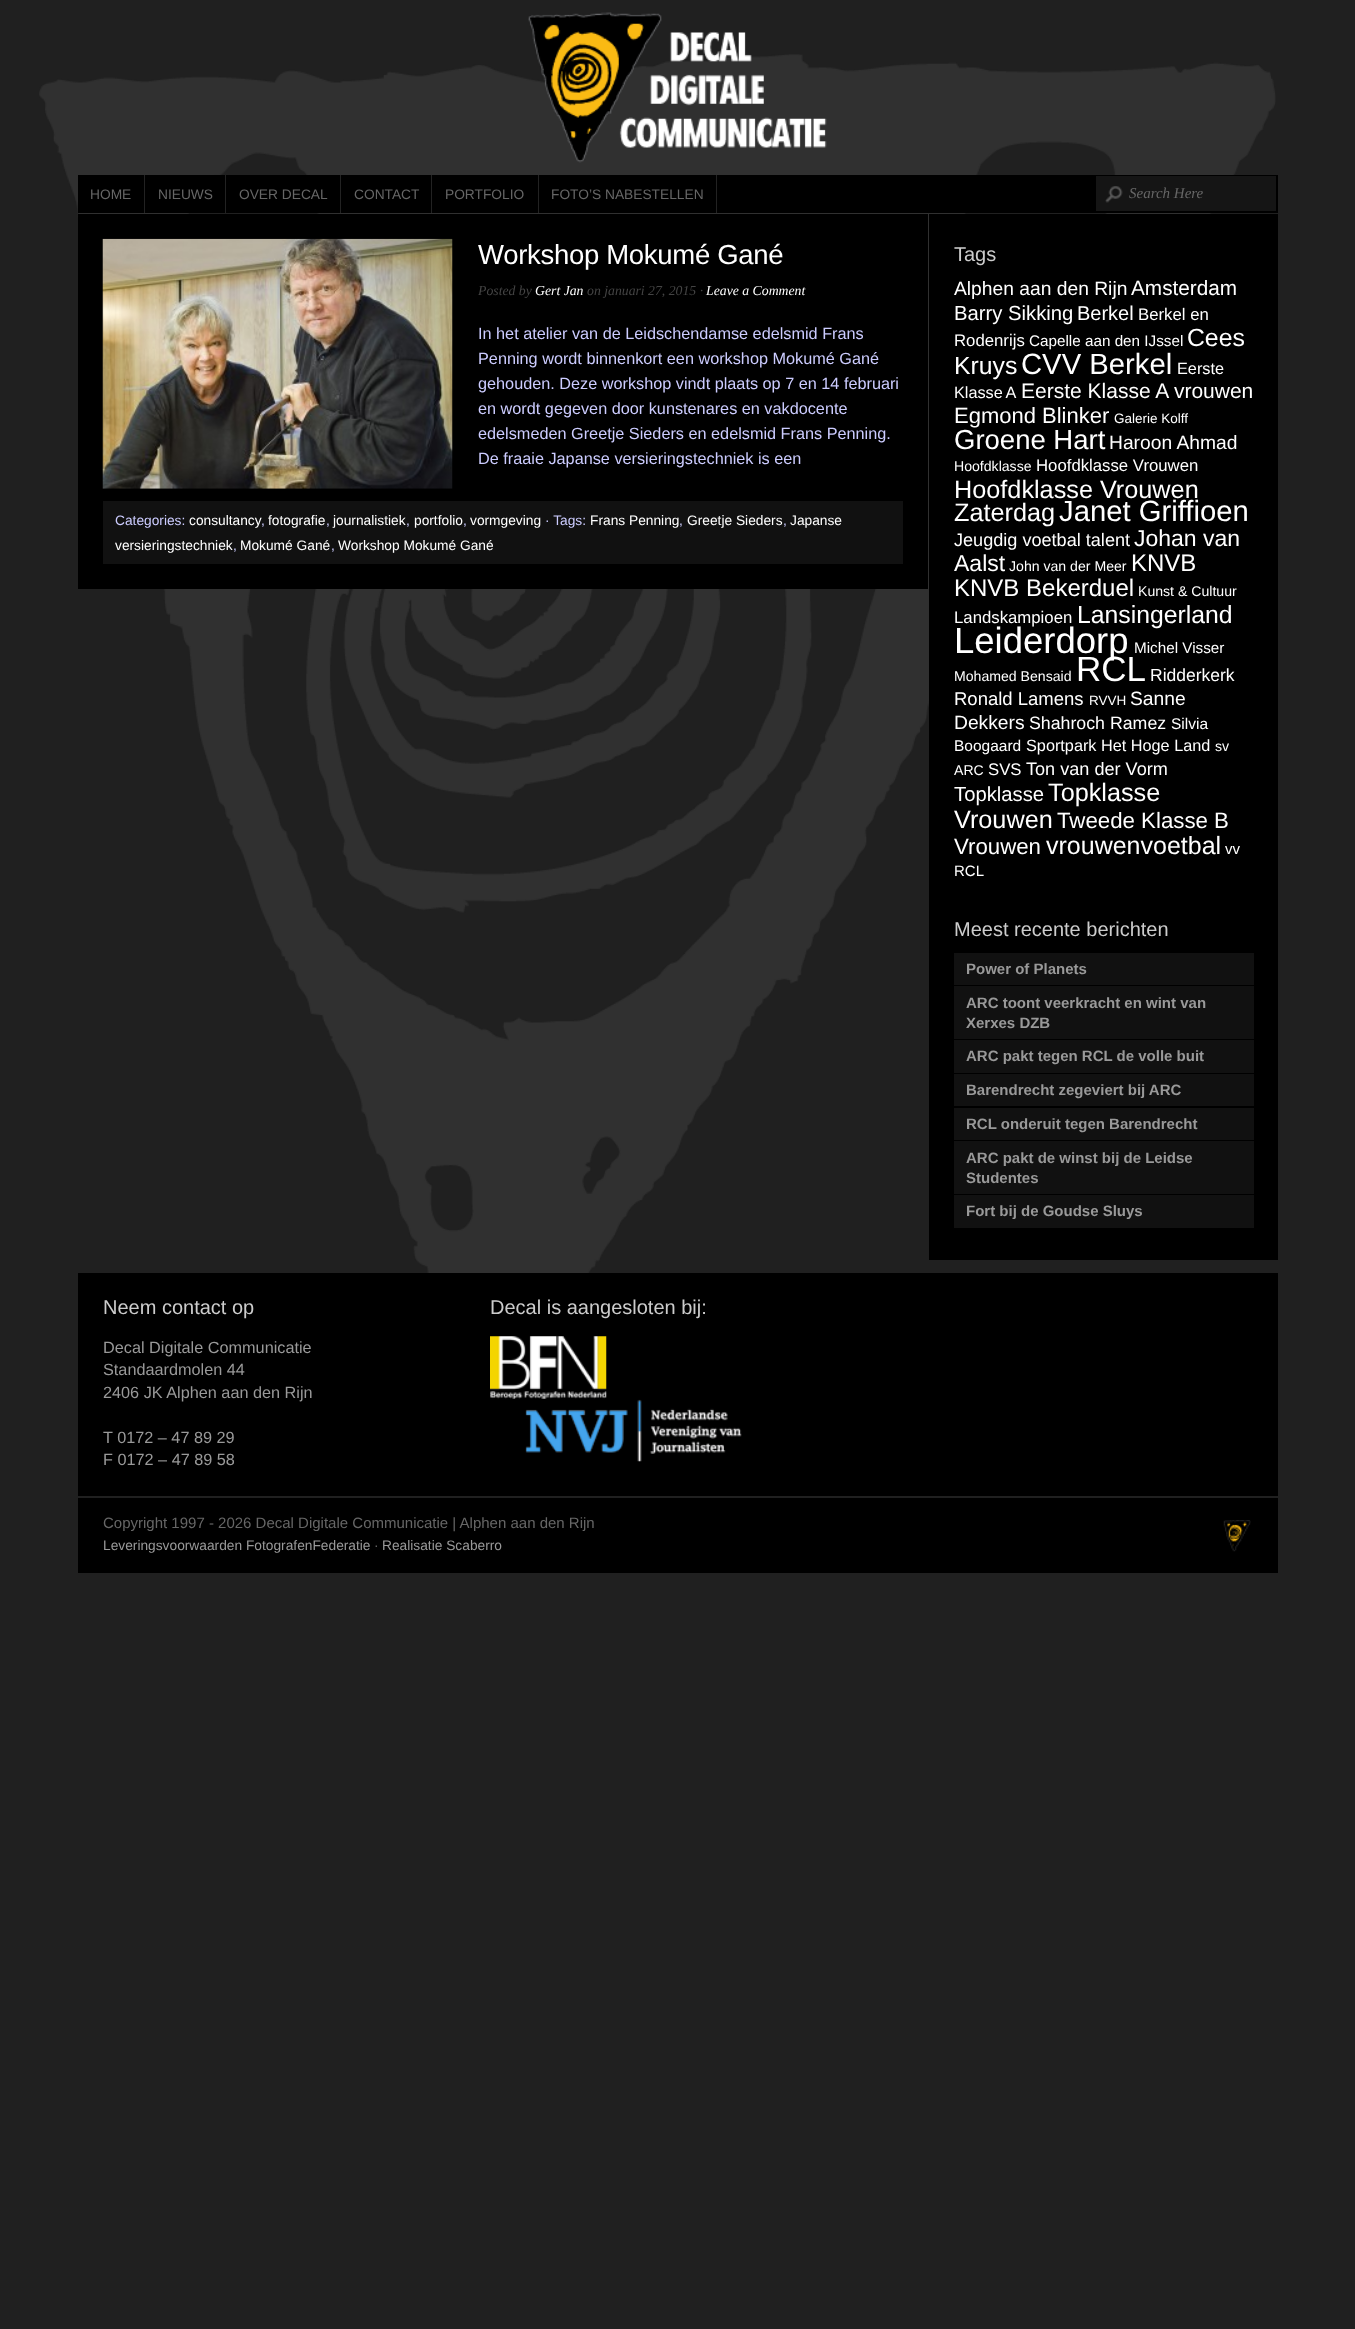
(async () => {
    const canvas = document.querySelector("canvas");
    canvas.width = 1355;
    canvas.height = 2329;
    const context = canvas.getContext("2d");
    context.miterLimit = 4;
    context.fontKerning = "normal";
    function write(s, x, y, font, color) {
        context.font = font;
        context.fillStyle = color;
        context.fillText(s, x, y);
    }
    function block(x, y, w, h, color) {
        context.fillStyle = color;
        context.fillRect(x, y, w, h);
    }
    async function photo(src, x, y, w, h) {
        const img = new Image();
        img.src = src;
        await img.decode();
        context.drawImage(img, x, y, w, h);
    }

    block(0, 0, 1355, 2329, "rgb(32, 32, 32)");
    await photo("media/1.png", 39, 54, 1237, 1219);
    await photo("media/2.png", 528, 12, 299, 151);
    block(78, 175, 1200, 38, "rgb(0, 0, 0)");
    block(144, 175, 1, 38, "rgb(34, 34, 34)");
    write("HOME", 90, 199, "13.75px Liberation Sans", "rgb(102, 102, 102)");
    block(225, 175, 1, 38, "rgb(34, 34, 34)");
    write("NIEUWS", 158, 199, "13.75px Liberation Sans", "rgb(102, 102, 102)");
    block(340, 175, 1, 38, "rgb(34, 34, 34)");
    write("OVER DECAL", 239, 199, "13.75px Liberation Sans", "rgb(102, 102, 102)");
    block(431, 175, 1, 38, "rgb(34, 34, 34)");
    write("CONTACT", 354, 199, "13.75px Liberation Sans", "rgb(102, 102, 102)");
    block(538, 175, 1, 38, "rgb(34, 34, 34)");
    write("PORTFOLIO", 445, 199, "13.75px Liberation Sans", "rgb(102, 102, 102)");
    block(716, 175, 1, 38, "rgb(34, 34, 34)");
    write("FOTO’S NABESTELLEN", 551, 199, "13.75px Liberation Sans", "rgb(102, 102, 102)");
    block(1096, 176, 180, 35, "rgb(21, 21, 21)");
    await photo("media/3.png", 1105, 186, 18, 17);
    write("Search Here", 1129, 198, "italic 15px Liberation Serif", "rgb(102, 102, 102)");
    block(78, 214, 850, 375, "rgb(0, 0, 0)");
    await photo("media/4.png", 102, 238, 351, 251);
    context.letterSpacing = "-0.3px";
    write("Workshop Mokumé Gané", 478, 264, "27.5px Liberation Sans", "rgb(255, 255, 255)");
    context.letterSpacing = "0px";
    write("Posted by", 478, 295, "italic 13.75px Liberation Serif", "rgb(68, 68, 68)");
    write("Gert Jan", 535, 295, "italic 13.75px Liberation Serif", "rgb(255, 255, 255)");
    write("on januari 27, 2015 ·", 587, 295, "italic 13.75px Liberation Serif", "rgb(68, 68, 68)");
    write("Leave a Comment", 706, 295, "italic 13.75px Liberation Serif", "rgb(255, 255, 255)");
    write("In het atelier van de Leidschendamse edelsmid Frans", 478, 339, "16.25px Liberation Sans", "rgb(204, 204, 255)");
    write("Penning wordt binnenkort een workshop Mokumé Gané", 478, 364, "16.25px Liberation Sans", "rgb(204, 204, 255)");
    write("gehouden. Deze workshop vindt plaats op 7 en 14 februari", 478, 389, "16.25px Liberation Sans", "rgb(204, 204, 255)");
    write("en wordt gegeven door kunstenares en vakdocente", 478, 414, "16.25px Liberation Sans", "rgb(204, 204, 255)");
    write("edelsmeden Greetje Sieders en edelsmid Frans Penning.", 478, 439, "16.25px Liberation Sans", "rgb(204, 204, 255)");
    write("De fraaie Japanse versieringstechniek is een", 478, 464, "16.25px Liberation Sans", "rgb(204, 204, 255)");
    block(103, 501, 800, 63, "rgb(17, 17, 17)");
    write("Categories:", 115, 525, "13.75px Liberation Sans", "rgb(204, 204, 255)");
    write("consultancy", 189, 525, "13.75px Liberation Sans", "rgb(255, 255, 255)");
    write(",", 261, 525, "13.75px Liberation Sans", "rgb(204, 204, 255)");
    write("fotografie", 268, 525, "13.75px Liberation Sans", "rgb(255, 255, 255)");
    write(",", 326, 525, "13.75px Liberation Sans", "rgb(204, 204, 255)");
    write("journalistiek", 333, 525, "13.75px Liberation Sans", "rgb(255, 255, 255)");
    write(",", 406, 525, "13.75px Liberation Sans", "rgb(204, 204, 255)");
    write("portfolio", 414, 525, "13.75px Liberation Sans", "rgb(255, 255, 255)");
    write(",", 463, 525, "13.75px Liberation Sans", "rgb(204, 204, 255)");
    write("vormgeving", 470, 525, "13.75px Liberation Sans", "rgb(255, 255, 255)");
    write("· Tags:", 545, 525, "13.75px Liberation Sans", "rgb(204, 204, 255)");
    write("Frans Penning", 590, 525, "13.75px Liberation Sans", "rgb(255, 255, 255)");
    write(",", 679, 525, "13.75px Liberation Sans", "rgb(204, 204, 255)");
    write("Greetje Sieders", 687, 525, "13.75px Liberation Sans", "rgb(255, 255, 255)");
    write(",", 783, 525, "13.75px Liberation Sans", "rgb(204, 204, 255)");
    write("Japanse", 790, 525, "13.75px Liberation Sans", "rgb(255, 255, 255)");
    write("versieringstechniek", 115, 550, "13.75px Liberation Sans", "rgb(255, 255, 255)");
    write(",", 233, 550, "13.75px Liberation Sans", "rgb(204, 204, 255)");
    write("Mokumé Gané", 240, 550, "13.75px Liberation Sans", "rgb(255, 255, 255)");
    write(",", 331, 550, "13.75px Liberation Sans", "rgb(204, 204, 255)");
    write("Workshop Mokumé Gané", 338, 550, "13.75px Liberation Sans", "rgb(255, 255, 255)");
    block(929, 214, 349, 1046, "rgb(0, 0, 0)");
    write("Tags", 954, 261, "20px Liberation Sans", "rgb(204, 204, 204)");
    write("Alphen aan den Rijn", 954, 295, "19.25px Liberation Sans", "rgb(255, 255, 255)");
    write("Amsterdam", 1131, 295, "20.75px Liberation Sans", "rgb(255, 255, 255)");
    write("Barry Sikking", 954, 320, "20.25px Liberation Sans", "rgb(255, 255, 255)");
    write("Berkel", 1077, 320, "20px Liberation Sans", "rgb(255, 255, 255)");
    write("Berkel en", 1138, 320, "16.75px Liberation Sans", "rgb(255, 255, 255)");
    write("Rodenrijs", 954, 346, "16.75px Liberation Sans", "rgb(255, 255, 255)");
    write("Capelle aan den IJssel", 1029, 346, "15.25px Liberation Sans", "rgb(255, 255, 255)");
    write("Cees", 1187, 346, "24.75px Liberation Sans", "rgb(255, 255, 255)");
    write("Kruys", 954, 374, "24.75px Liberation Sans", "rgb(255, 255, 255)");
    write("CVV Berkel", 1021, 374, "29.25px Liberation Sans", "rgb(255, 255, 255)");
    write("Eerste", 1177, 374, "16.25px Liberation Sans", "rgb(255, 255, 255)");
    context.wordSpacing = "-1px";
    write("Klasse A", 954, 398, "16.25px Liberation Sans", "rgb(255, 255, 255)");
    context.wordSpacing = "0px";
    write("Eerste Klasse A vrouwen", 1021, 398, "21px Liberation Sans", "rgb(255, 255, 255)");
    write("Egmond Blinker", 954, 423, "22px Liberation Sans", "rgb(255, 255, 255)");
    write("Galerie Kolff", 1114, 423, "13.5px Liberation Sans", "rgb(255, 255, 255)");
    write("Groene Hart", 954, 449, "27.5px Liberation Sans", "rgb(255, 255, 255)");
    write("Haroon Ahmad", 1109, 449, "19.25px Liberation Sans", "rgb(255, 255, 255)");
    write("Hoofdklasse", 954, 471, "14.1px Liberation Sans", "rgb(255, 255, 255)");
    write("Hoofdklasse Vrouwen", 1036, 471, "16.75px Liberation Sans", "rgb(255, 255, 255)");
    write("Hoofdklasse Vrouwen", 954, 498, "25.25px Liberation Sans", "rgb(255, 255, 255)");
    write("Zaterdag", 954, 521, "25.25px Liberation Sans", "rgb(255, 255, 255)");
    write("Janet Griffioen", 1059, 521, "29.25px Liberation Sans", "rgb(255, 255, 255)");
    write("Jeugdig voetbal talent", 954, 546, "18.1px Liberation Sans", "rgb(255, 255, 255)");
    write("Johan van", 1134, 546, "23px Liberation Sans", "rgb(255, 255, 255)");
    write("Aalst", 954, 571, "23px Liberation Sans", "rgb(255, 255, 255)");
    write("John van der Meer", 1009, 571, "14.1px Liberation Sans", "rgb(255, 255, 255)");
    write("KNVB", 1131, 571, "24px Liberation Sans", "rgb(255, 255, 255)");
    write("KNVB Bekerduel", 954, 596, "24px Liberation Sans", "rgb(255, 255, 255)");
    write("Kunst & Cultuur", 1138, 596, "14.1px Liberation Sans", "rgb(255, 255, 255)");
    write("Landskampioen", 954, 623, "16.75px Liberation Sans", "rgb(255, 255, 255)");
    write("Lansingerland", 1077, 623, "24.75px Liberation Sans", "rgb(255, 255, 255)");
    write("Leiderdorp", 954, 653, "36.5px Liberation Sans", "rgb(255, 255, 255)");
    write("Michel Visser", 1134, 653, "15.25px Liberation Sans", "rgb(255, 255, 255)");
    write("Mohamed Bensaid", 954, 681, "14.1px Liberation Sans", "rgb(255, 255, 255)");
    write("RCL", 1076, 681, "35px Liberation Sans", "rgb(255, 255, 255)");
    write("Ridderkerk", 1150, 681, "17.5px Liberation Sans", "rgb(255, 255, 255)");
    write("Ronald Lamens", 954, 705, "18.5px Liberation Sans", "rgb(255, 255, 255)");
    write("RVVH", 1089, 705, "13.5px Liberation Sans", "rgb(255, 255, 255)");
    write("Sanne", 1130, 705, "19.25px Liberation Sans", "rgb(255, 255, 255)");
    write("Dekkers", 954, 729, "19.25px Liberation Sans", "rgb(255, 255, 255)");
    write("Shahroch Ramez", 1029, 729, "17.75px Liberation Sans", "rgb(255, 255, 255)");
    write("Silvia", 1171, 729, "15.5px Liberation Sans", "rgb(255, 255, 255)");
    write("Boogaard", 954, 751, "15.5px Liberation Sans", "rgb(255, 255, 255)");
    write("Sportpark Het Hoge Land", 1026, 751, "16.25px Liberation Sans", "rgb(255, 255, 255)");
    write("sv", 1215, 751, "14.1px Liberation Sans", "rgb(255, 255, 255)");
    write("ARC", 954, 775, "14.1px Liberation Sans", "rgb(255, 255, 255)");
    write("SVS", 988, 775, "16.75px Liberation Sans", "rgb(255, 255, 255)");
    write("Ton van der Vorm", 1026, 775, "18.1px Liberation Sans", "rgb(255, 255, 255)");
    write("Topklasse", 954, 801, "20.25px Liberation Sans", "rgb(255, 255, 255)");
    write("Topklasse", 1048, 801, "25.25px Liberation Sans", "rgb(255, 255, 255)");
    write("Vrouwen", 954, 828, "25.25px Liberation Sans", "rgb(255, 255, 255)");
    write("Tweede Klasse B", 1057, 828, "22.25px Liberation Sans", "rgb(255, 255, 255)");
    write("Vrouwen", 954, 854, "22.25px Liberation Sans", "rgb(255, 255, 255)");
    write("vrouwenvoetbal", 1046, 854, "25px Liberation Sans", "rgb(255, 255, 255)");
    write("vv", 1225, 854, "15px Liberation Sans", "rgb(255, 255, 255)");
    write("RCL", 954, 876, "15px Liberation Sans", "rgb(255, 255, 255)");
    write("Meest recente berichten", 954, 936, "20px Liberation Sans", "rgb(204, 204, 204)");
    block(954, 953, 300, 32, "rgb(17, 17, 17)");
    write("Power of Planets", 966, 974, "bold 15px Liberation Sans", "rgb(153, 153, 153)");
    block(954, 986, 300, 53, "rgb(17, 17, 17)");
    write("ARC toont veerkracht en wint van", 966, 1008, "bold 15px Liberation Sans", "rgb(153, 153, 153)");
    write("Xerxes DZB", 966, 1028, "bold 15px Liberation Sans", "rgb(153, 153, 153)");
    block(954, 1040, 300, 33, "rgb(17, 17, 17)");
    write("ARC pakt tegen RCL de volle buit", 966, 1061, "bold 15px Liberation Sans", "rgb(153, 153, 153)");
    block(954, 1074, 300, 32, "rgb(17, 17, 17)");
    write("Barendrecht zegeviert bij ARC", 966, 1095, "bold 15px Liberation Sans", "rgb(153, 153, 153)");
    block(954, 1108, 300, 32, "rgb(17, 17, 17)");
    write("RCL onderuit tegen Barendrecht", 966, 1129, "bold 15px Liberation Sans", "rgb(153, 153, 153)");
    block(954, 1141, 300, 53, "rgb(17, 17, 17)");
    write("ARC pakt de winst bij de Leidse", 966, 1163, "bold 15px Liberation Sans", "rgb(153, 153, 153)");
    write("Studentes", 966, 1183, "bold 15px Liberation Sans", "rgb(153, 153, 153)");
    block(954, 1195, 300, 33, "rgb(17, 17, 17)");
    write("Fort bij de Goudse Sluys", 966, 1216, "bold 15px Liberation Sans", "rgb(153, 153, 153)");
    block(78, 1273, 1200, 223, "rgb(0, 0, 0)");
    write("Neem contact op", 103, 1314, "20px Liberation Sans", "rgb(204, 204, 204)");
    write("Decal Digitale Communicatie", 103, 1353, "16.25px Liberation Sans", "rgb(153, 153, 153)");
    write("Standaardmolen 44", 103, 1375, "16.25px Liberation Sans", "rgb(153, 153, 153)");
    write("2406 JK Alphen aan den Rijn", 103, 1398, "16.25px Liberation Sans", "rgb(153, 153, 153)");
    write("T 0172 – 47 89 29", 103, 1443, "16.25px Liberation Sans", "rgb(153, 153, 153)");
    write("F 0172 – 47 89 58", 103, 1465, "16.25px Liberation Sans", "rgb(153, 153, 153)");
    write("Decal is aangesloten bij:", 490, 1314, "20px Liberation Sans", "rgb(204, 204, 204)");
    await photo("media/5.png", 490, 1336, 117, 63);
    await photo("media/6.png", 525, 1399, 217, 63);
    block(78, 1498, 1200, 75, "rgb(0, 0, 0)");
    write("Copyright 1997 - 2026 Decal Digitale Communicatie | Alphen aan den Rijn", 103, 1528, "15px Liberation Sans", "rgb(102, 102, 102)");
    write("Leveringsvoorwaarden FotografenFederatie", 103, 1550, "13.75px Liberation Sans", "rgb(153, 153, 153)");
    write("·", 374, 1550, "13.75px Liberation Sans", "rgb(102, 102, 102)");
    write("Realisatie Scaberro", 382, 1550, "13.75px Liberation Sans", "rgb(153, 153, 153)");
    await photo("media/7.png", 1223, 1520, 28, 32);
})();
